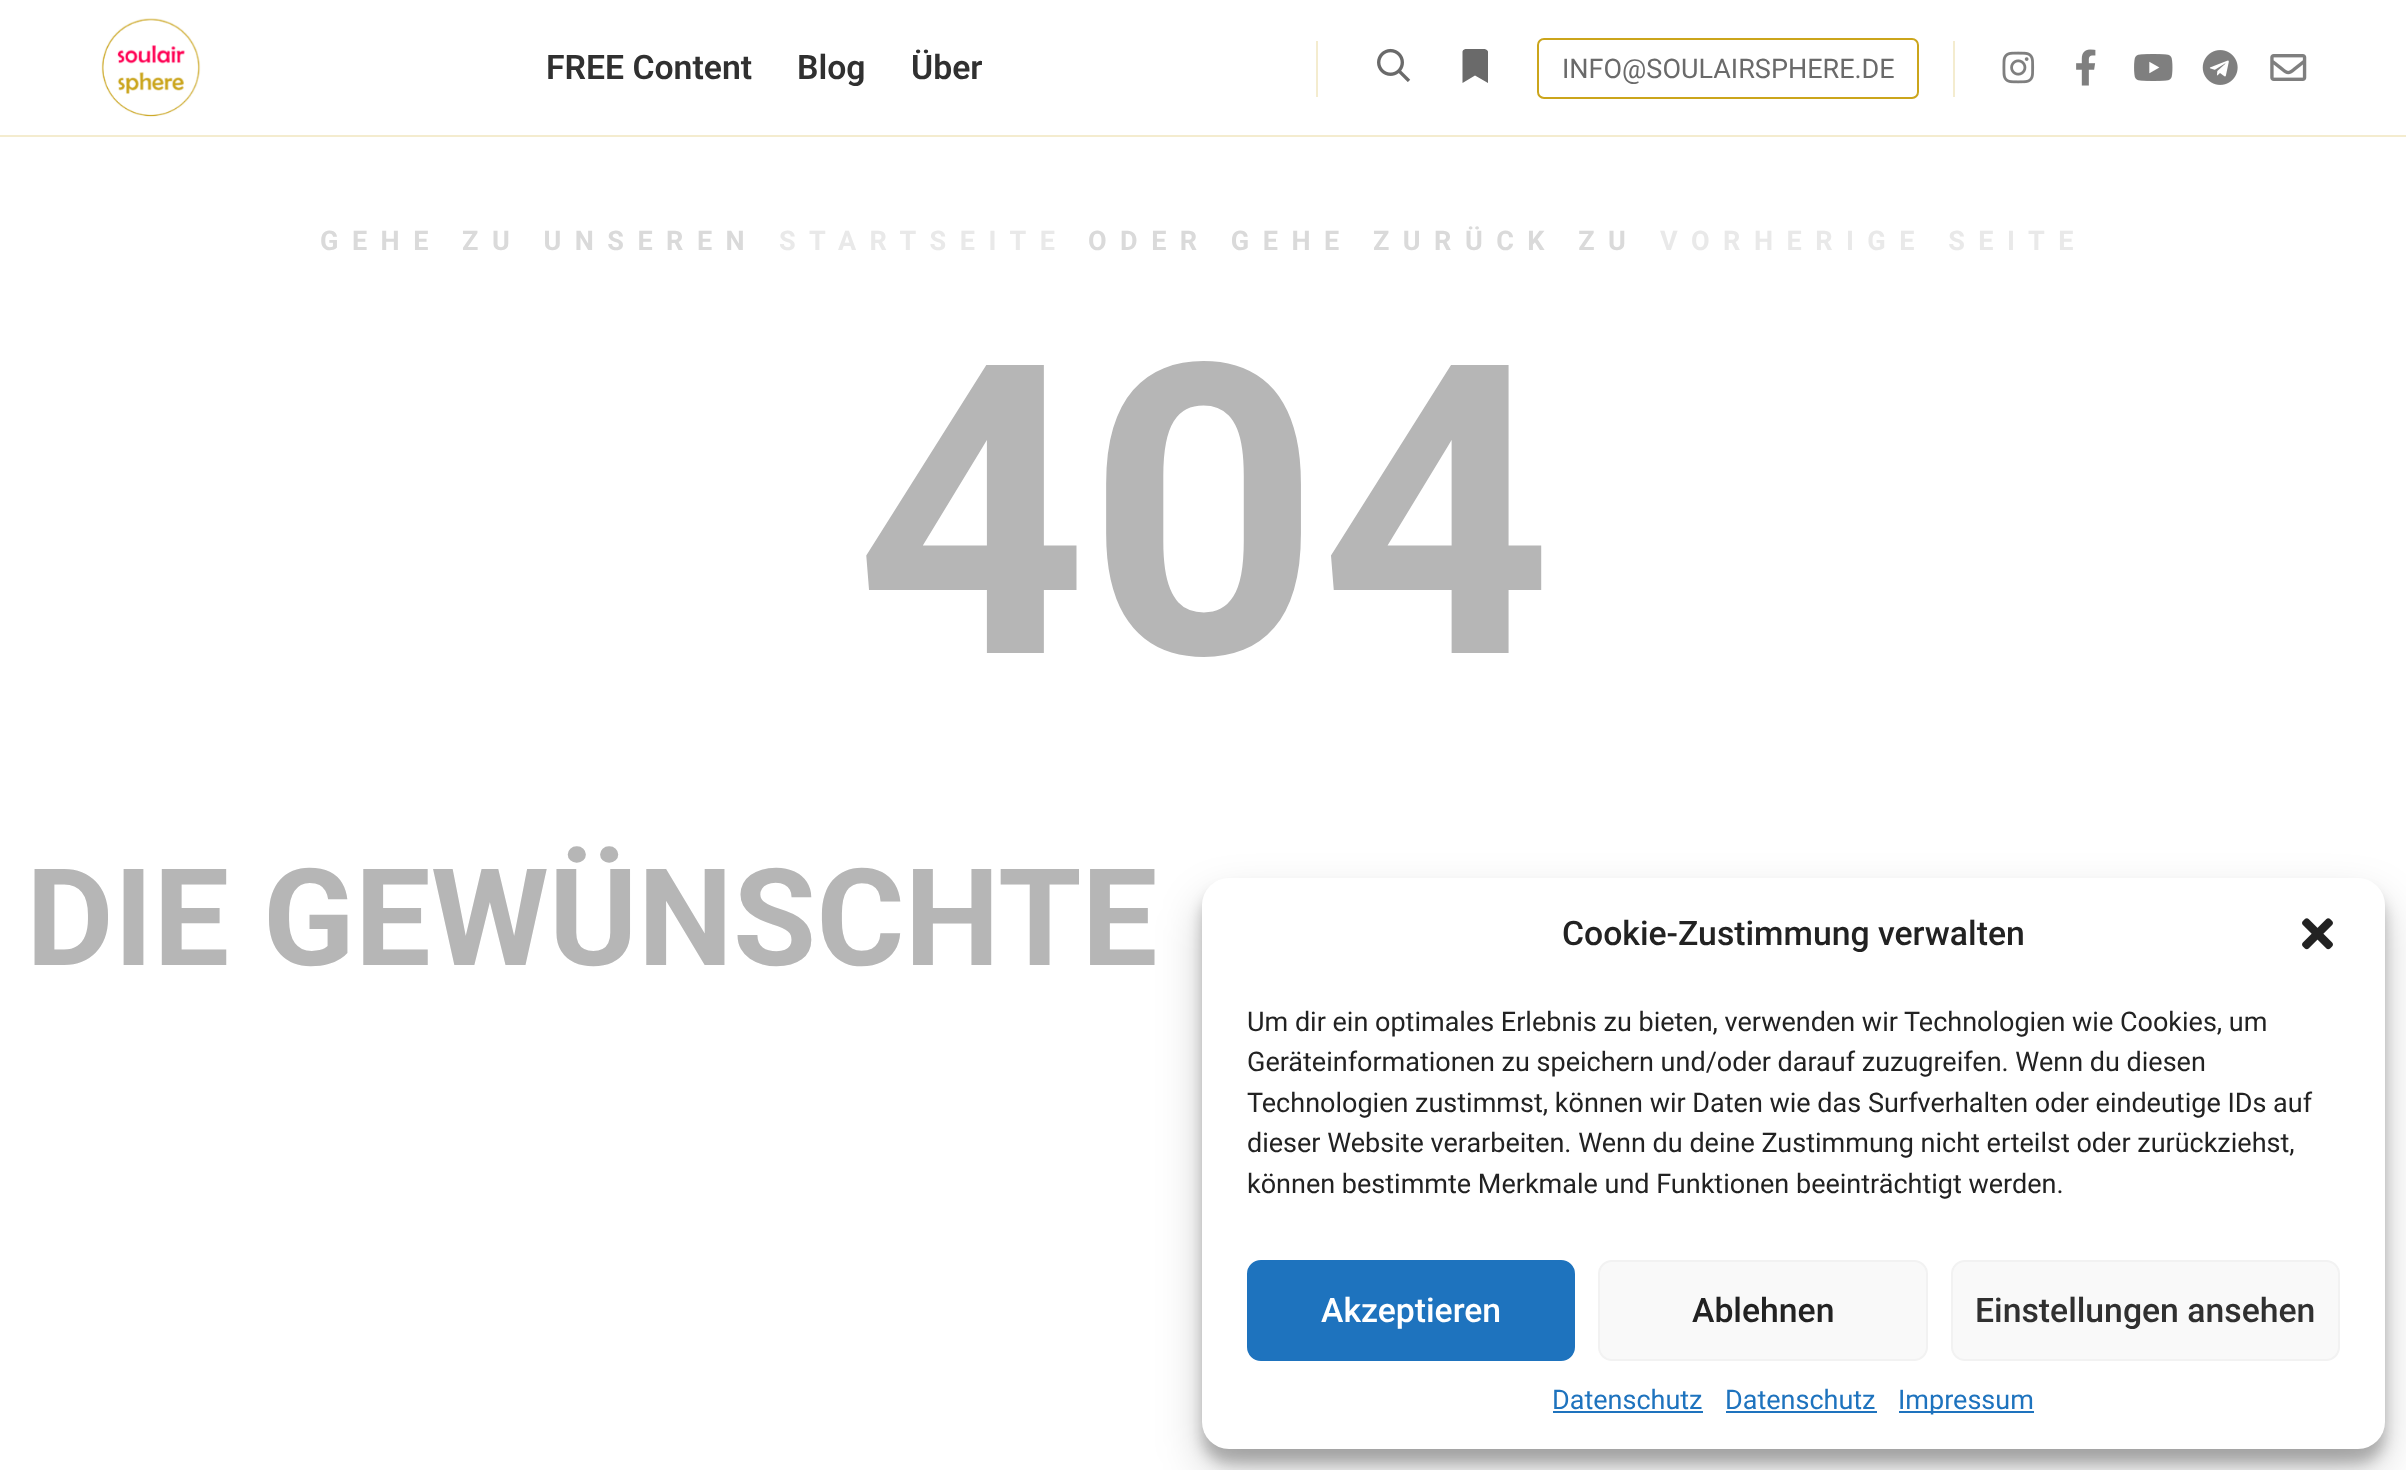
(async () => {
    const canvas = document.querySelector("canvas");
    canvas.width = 2406;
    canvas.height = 1470;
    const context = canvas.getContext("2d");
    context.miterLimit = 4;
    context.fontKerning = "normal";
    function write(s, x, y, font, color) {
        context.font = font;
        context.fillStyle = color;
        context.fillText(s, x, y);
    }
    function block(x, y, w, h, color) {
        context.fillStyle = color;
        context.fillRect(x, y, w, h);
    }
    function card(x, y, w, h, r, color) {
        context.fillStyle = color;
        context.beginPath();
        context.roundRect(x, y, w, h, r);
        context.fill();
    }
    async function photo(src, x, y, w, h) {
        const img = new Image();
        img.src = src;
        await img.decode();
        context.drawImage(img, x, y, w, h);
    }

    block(0, 0, 2406, 1470, "rgb(255, 255, 255)");
    block(0, 135, 2406, 2, "rgb(244, 236, 207)");
    await photo("media/1.png", 101, 18, 100, 99);
    write("FREE Content", 546, 79, "600 33.75px Roboto", "rgb(48, 48, 48)");
    write("Blog", 797, 79, "600 33.75px Roboto", "rgb(48, 48, 48)");
    write("Über", 911, 79, "600 33.75px Roboto", "rgb(48, 48, 48)");
    block(1316, 41, 2, 56, "rgb(244, 236, 207)");
    await photo("media/2.png", 1377, 48, 34, 34);
    context.fillStyle = "rgb(106, 106, 106)";
    context.beginPath();
    context.moveTo(1462.5, 83);
    context.lineTo(1462.5, 51.5);
    context.bezierCurveTo(1463, 48.5, 1466.5, 49, 1469, 49);
    context.lineTo(1481.5, 49);
    context.bezierCurveTo(1483.5, 49, 1487, 48.5, 1488, 51.5);
    context.lineTo(1488, 83);
    context.lineTo(1475, 75.5);
    context.closePath();
    context.fill();
    context.beginPath();
    context.roundRect(1538, 39, 380, 59, 6);
    context.strokeStyle = "rgb(203, 165, 27)";
    context.lineWidth = 2;
    context.stroke();
    write("INFO@SOULAIRSPHERE.DE", 1562, 78, "27px Roboto", "rgb(106, 106, 106)");
    block(1953, 41, 2, 56, "rgb(244, 236, 207)");
    await photo("media/3.png", 2002, 51, 33, 33);
    await photo("media/4.png", 2076, 49, 20, 37);
    await photo("media/5.png", 2134, 54, 39, 27);
    await photo("media/6.png", 2202, 50, 36, 35);
    await photo("media/7.png", 2270, 54, 37, 27);
    context.letterSpacing = "13.5px";
    write("GEHE ZU UNSEREN", 320, 250, "bold 27px Roboto", "rgb(218, 218, 218)");
    write("STARTSEITE", 779, 250, "bold 27px Roboto", "rgb(233, 233, 233)");
    write("ODER GEHE ZURÜCK ZU", 1088, 250, "bold 27px Roboto", "rgb(218, 218, 218)");
    write("VORHERIGE SEITE", 1660, 250, "bold 27px Roboto", "rgb(233, 233, 233)");
    context.letterSpacing = "0px";
    write("404", 855, 653, "bold 405px Roboto", "rgb(182, 182, 182)");
    write("DIE GEWÜNSCHTE", 26, 965, "bold 135px Roboto", "rgb(182, 182, 182)");
    context.fillStyle = "rgba(0, 0, 0, 0.23)";
    context.filter = "blur(7px)";
    context.beginPath();
    context.roundRect(1202, 891, 1183, 572, 27);
    context.fill();
    context.filter = "none";
    context.fillStyle = "rgba(0, 0, 0, 0.19)";
    context.filter = "blur(22.5px)";
    context.beginPath();
    context.roundRect(1202, 900, 1183, 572, 27);
    context.fill();
    context.filter = "none";
    card(1202, 878, 1183, 571, 27, "rgb(255, 255, 255)");
    write("Cookie-Zustimmung verwalten", 1562, 945, "500 33.75px Roboto", "rgb(34, 34, 34)");
    await photo("media/8.png", 2302, 918, 31, 32);
    write("Um dir ein optimales Erlebnis zu bieten, verwenden wir Technologien wie Cookies, um", 1247, 1031, "27px Roboto", "rgb(34, 34, 34)");
    write("Geräteinformationen zu speichern und/oder darauf zuzugreifen. Wenn du diesen", 1247, 1071, "27px Roboto", "rgb(34, 34, 34)");
    write("Technologien zustimmst, können wir Daten wie das Surfverhalten oder eindeutige IDs auf", 1247, 1112, "27px Roboto", "rgb(34, 34, 34)");
    write("dieser Website verarbeiten. Wenn du deine Zustimmung nicht erteilst oder zurückziehst,", 1247, 1152, "27px Roboto", "rgb(34, 34, 34)");
    write("können bestimmte Merkmale und Funktionen beeinträchtigt werden.", 1247, 1193, "27px Roboto", "rgb(34, 34, 34)");
    context.fillStyle = "rgb(30, 115, 190)";
    context.beginPath();
    context.roundRect(1248, 1261, 326, 99, 13);
    context.fill();
    context.strokeStyle = "rgb(30, 115, 190)";
    context.stroke();
    write("Akzeptieren", 1321, 1322, "500 33.75px Roboto", "rgb(255, 255, 255)");
    context.fillStyle = "rgb(249, 249, 249)";
    context.beginPath();
    context.roundRect(1599, 1261, 328, 99, 13);
    context.fill();
    context.strokeStyle = "rgb(242, 242, 242)";
    context.stroke();
    write("Ablehnen", 1692, 1322, "500 33.75px Roboto", "rgb(34, 34, 34)");
    context.fillStyle = "rgb(249, 249, 249)";
    context.beginPath();
    context.roundRect(1952, 1261, 387, 99, 13);
    context.fill();
    context.stroke();
    write("Einstellungen ansehen", 1975, 1322, "500 33.75px Roboto", "rgb(48, 48, 48)");
    write("Datenschutz", 1552, 1409, "27px Roboto", "rgb(30, 115, 190)");
    block(1553, 1411, 150, 2, "rgb(30, 115, 190)");
    write("Datenschutz", 1725, 1409, "27px Roboto", "rgb(30, 115, 190)");
    block(1726, 1411, 151, 2, "rgb(30, 115, 190)");
    block(1899, 1411, 135, 2, "rgb(30, 115, 190)");
    write("Impressum", 1898, 1409, "27px Roboto", "rgb(30, 115, 190)");
})();
